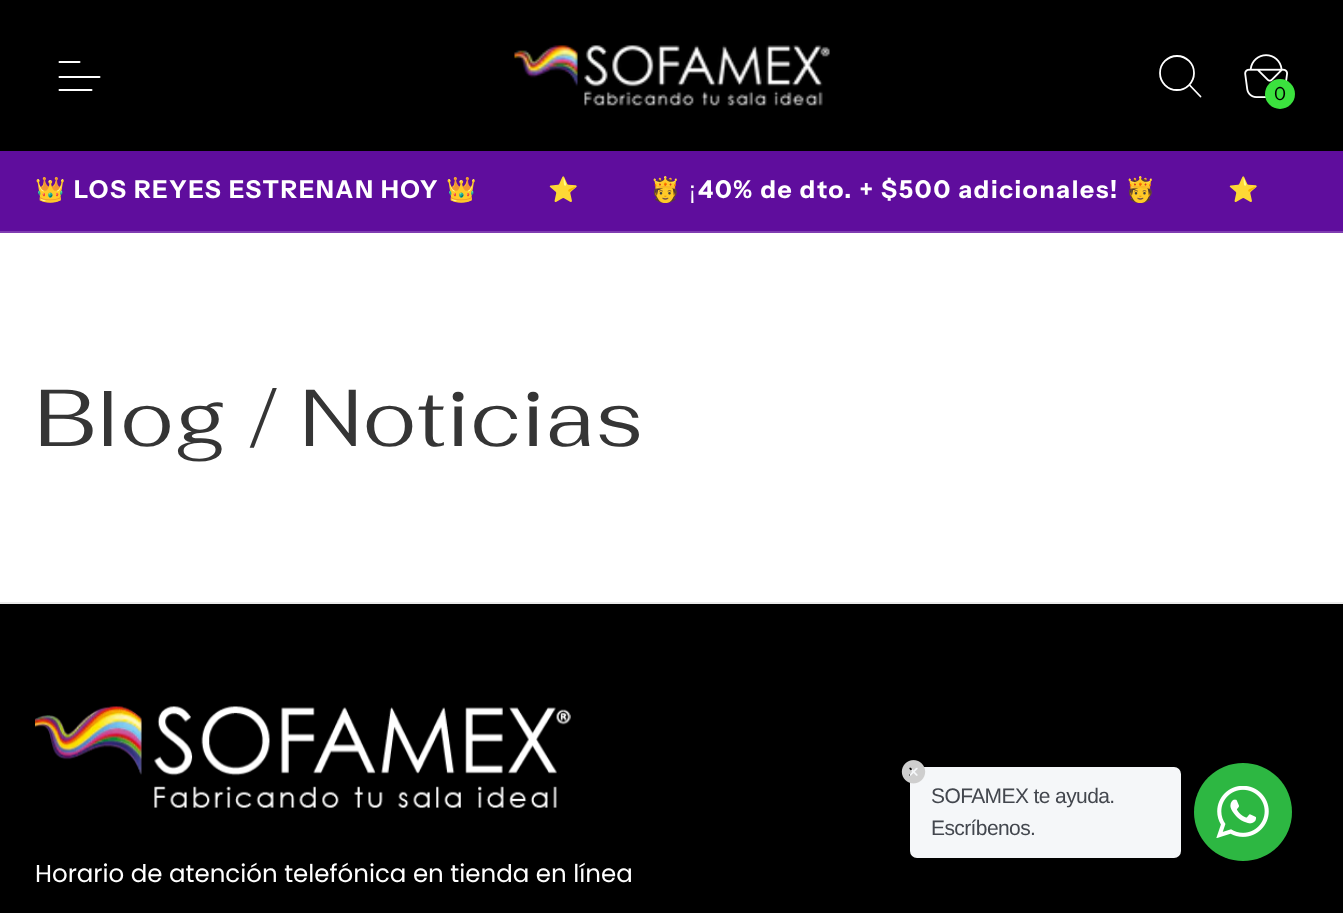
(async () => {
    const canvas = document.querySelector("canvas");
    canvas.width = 1343;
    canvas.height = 913;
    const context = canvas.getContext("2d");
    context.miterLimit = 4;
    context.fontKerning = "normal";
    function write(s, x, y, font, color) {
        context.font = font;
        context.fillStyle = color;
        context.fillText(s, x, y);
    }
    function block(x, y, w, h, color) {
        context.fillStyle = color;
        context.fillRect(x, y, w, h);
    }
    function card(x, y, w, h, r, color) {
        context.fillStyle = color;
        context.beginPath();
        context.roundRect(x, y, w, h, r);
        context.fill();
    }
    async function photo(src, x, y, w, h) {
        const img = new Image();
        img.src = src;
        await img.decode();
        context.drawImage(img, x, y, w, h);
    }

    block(0, 0, 1343, 913, "rgb(255, 255, 255)");
    block(0, 0, 1343, 151, "rgb(0, 0, 0)");
    context.beginPath();
    context.moveTo(59.5, 62);
    context.lineTo(79.5, 62);
    context.moveTo(59.5, 77);
    context.lineTo(99.5, 77);
    context.moveTo(59.5, 90);
    context.lineTo(91.5, 90);
    context.strokeStyle = "rgb(255, 255, 255)";
    context.lineWidth = 2;
    context.lineCap = "round";
    context.stroke();
    await photo("media/1.png", 514, 45, 316, 61);
    context.beginPath();
    context.arc(1177, 73, 17, 0, Math.PI * 2);
    context.lineWidth = 1.8;
    context.stroke();
    context.beginPath();
    context.moveTo(1190, 85.5);
    context.lineTo(1200.5, 96.5);
    context.stroke();
    await photo("media/2.png", 1244, 54, 44, 44);
    context.fillStyle = "rgb(59, 226, 62)";
    context.beginPath();
    context.arc(1280, 94, 15, 0, Math.PI * 2);
    context.fill();
    write("0", 1274, 100, "18px Instrument Sans", "rgb(0, 0, 0)");
    block(0, 151, 1343, 80, "rgb(95, 13, 157)");
    block(0, 231, 1343, 2, "rgb(127, 61, 177)");
    context.letterSpacing = "1.75px";
    write("👑", 35, 198, "24.5px Noto Color Emoji", "rgb(255, 255, 255)");
    write("LOS REYES ESTRENAN HOY", 74, 198, "bold 24.5px Instrument Sans", "rgb(255, 255, 255)");
    write("👑", 446, 198, "24.5px Noto Color Emoji", "rgb(255, 255, 255)");
    write("⭐", 548, 198, "24.5px Noto Color Emoji", "rgb(255, 255, 255)");
    write("🫅", 650, 198, "24.5px Noto Color Emoji", "rgb(255, 255, 255)");
    write("¡", 689, 198, "24.5px Instrument Sans", "rgb(255, 255, 255)");
    write("40% de dto. + $500 adicionales!", 698, 198, "bold 24.5px Instrument Sans", "rgb(255, 255, 255)");
    write("🫅", 1125, 198, "24.5px Noto Color Emoji", "rgb(255, 255, 255)");
    write("⭐", 1228, 198, "24.5px Noto Color Emoji", "rgb(255, 255, 255)");
    context.letterSpacing = "1px";
    write("Blog / Noticias", 35, 446, "80.5px Fahkwang", "rgb(53, 53, 53)");
    block(0, 604, 1343, 309, "rgb(0, 0, 0)");
    card(910, 767, 271, 91, 7, "rgb(245, 247, 249)");
    await photo("media/3.png", 901, 760, 25, 24);
    context.letterSpacing = "-0.6px";
    write("SOFAMEX te ayuda.", 931, 803, "21px Liberation Sans", "rgb(67, 71, 78)");
    write("Escríbenos.", 931, 835, "21px Liberation Sans", "rgb(67, 71, 78)");
    context.fillStyle = "rgb(45, 183, 66)";
    context.beginPath();
    context.arc(1243, 812, 49, 0, Math.PI * 2);
    context.fill();
    await photo("media/4.png", 1216, 786, 53, 52);
    block(0, 602, 1343, 2, "rgb(235, 235, 235)");
    await photo("media/5.png", 35, 706, 536, 102);
    context.letterSpacing = "0px";
    write("Horario de atención telefónica en tienda en línea", 35, 882, "24.5px Poppins", "rgb(255, 255, 255)");
})();
